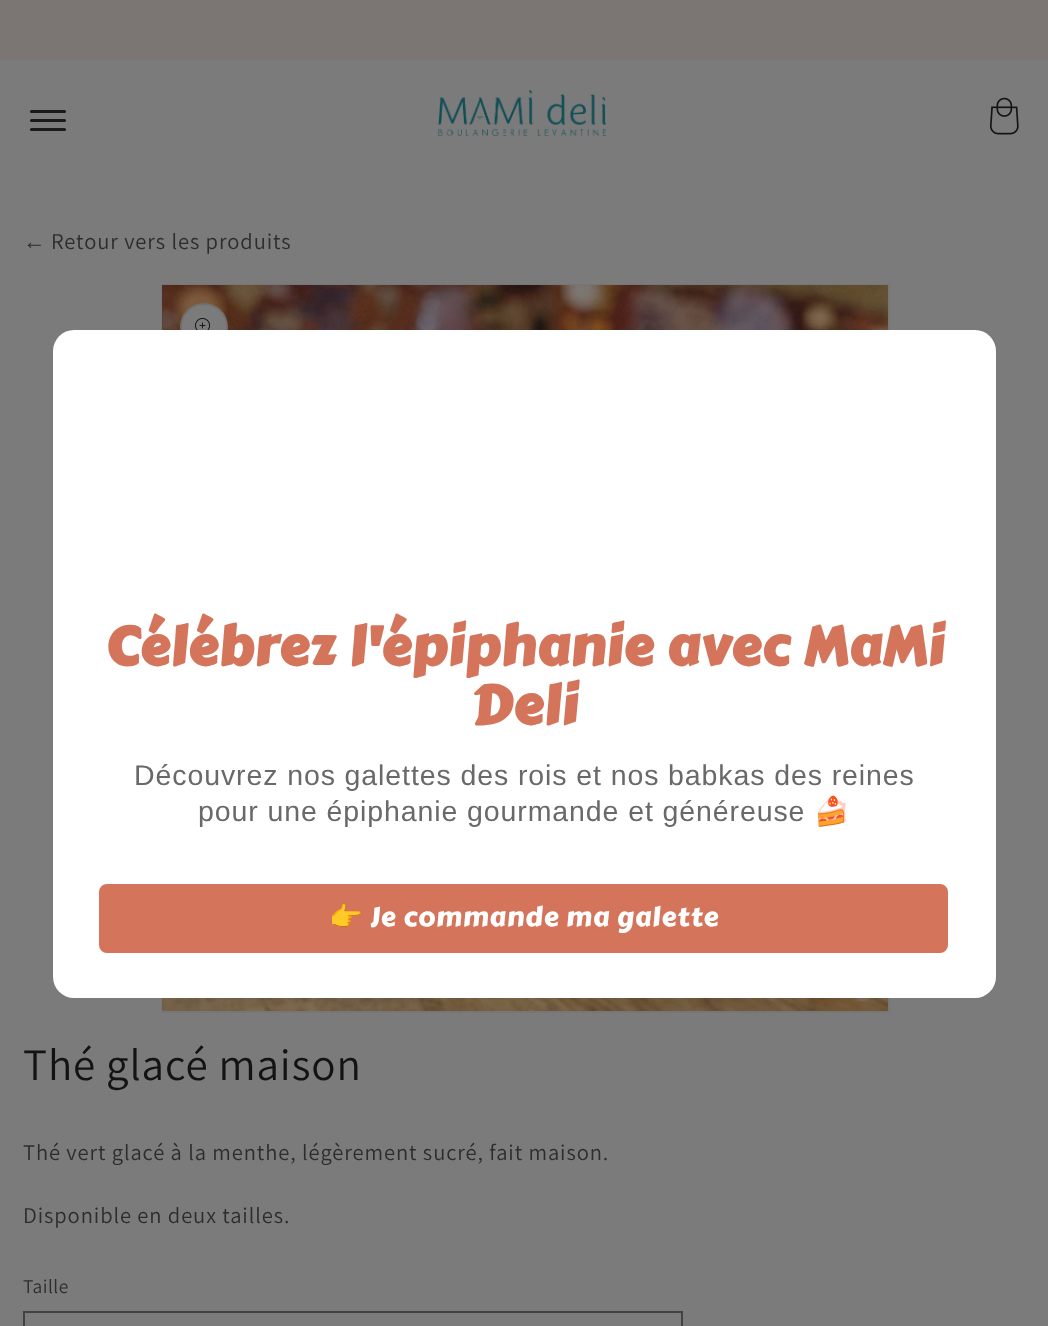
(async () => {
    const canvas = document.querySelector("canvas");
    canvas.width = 1048;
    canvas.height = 1326;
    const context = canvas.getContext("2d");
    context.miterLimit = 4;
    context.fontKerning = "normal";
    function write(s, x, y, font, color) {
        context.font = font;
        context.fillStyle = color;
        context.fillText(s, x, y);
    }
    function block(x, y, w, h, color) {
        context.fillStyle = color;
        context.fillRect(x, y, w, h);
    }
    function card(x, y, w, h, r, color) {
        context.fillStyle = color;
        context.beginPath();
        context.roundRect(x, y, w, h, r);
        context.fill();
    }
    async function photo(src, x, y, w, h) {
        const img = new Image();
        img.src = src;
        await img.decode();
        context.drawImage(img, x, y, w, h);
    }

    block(0, 0, 1048, 1326, "rgb(123, 123, 123)");
    block(0, 0, 1048, 60, "rgb(123, 118, 116)");
    card(30, 110, 36, 3, 1.5, "rgb(26, 26, 26)");
    card(30, 119, 36, 3, 1.5, "rgb(26, 26, 26)");
    card(30, 128, 36, 3, 1.5, "rgb(26, 26, 26)");
    await photo("media/1.png", 438, 90, 168, 47);
    await photo("media/2.png", 990, 97, 29, 38);
    context.letterSpacing = "0.9px";
    write("←", 23, 249, "22.5px Liberation Sans", "rgb(45, 45, 45)");
    write("Retour vers les produits", 51, 249, "22.5px Assistant", "rgb(45, 45, 45)");
    context.strokeStyle = "rgb(118, 118, 118)";
    context.lineWidth = 2;
    context.strokeRect(162, 285, 727, 727);
    await photo("media/3.png", 162, 285, 726, 726);
    context.fillStyle = "rgb(123, 123, 123)";
    context.beginPath();
    context.arc(204, 327, 24, 0, Math.PI * 2);
    context.fill();
    context.beginPath();
    context.arc(204, 327, 23, 0, Math.PI * 2);
    context.strokeStyle = "rgba(19, 19, 19, 0.1)";
    context.stroke();
    await photo("media/4.png", 195, 318, 16, 12);
    write("Thé glacé maison", 23, 1080, "45px Assistant", "rgb(19, 19, 19)");
    write("Thé vert glacé à la menthe, légèrement sucré, fait maison.", 23, 1160, "22.5px Assistant", "rgb(45, 45, 45)");
    write("Disponible en deux tailles.", 23, 1223, "22.5px Assistant", "rgb(45, 45, 45)");
    context.letterSpacing = "0.5px";
    write("Taille", 23, 1293, "19.5px Assistant", "rgb(45, 45, 45)");
    context.strokeStyle = "rgb(66, 66, 66)";
    context.strokeRect(24, 1312, 658, 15);
    card(53, 330, 943, 668, 21, "rgb(255, 255, 255)");
    context.letterSpacing = "0.9px";
    write("Célébrez l'épiphanie avec MaMi", 105, 665, "bold 54px Carter One", "rgb(212, 116, 91)");
    write("Deli", 471, 724, "bold 54px Carter One", "rgb(212, 116, 91)");
    write("Découvrez nos galettes des rois et nos babkas des reines", 134, 785, "28.5px Liberation Sans", "rgb(105, 105, 105)");
    write("pour une épiphanie gourmande et généreuse", 198, 821, "28.5px Liberation Sans", "rgb(105, 105, 105)");
    write("🍰", 814, 821, "28.5px Noto Color Emoji", "rgb(105, 105, 105)");
    context.fillStyle = "rgb(212, 116, 91)";
    context.beginPath();
    context.roundRect(100.5, 885.5, 846, 66, 6.5);
    context.fill();
    context.strokeStyle = "rgb(212, 116, 91)";
    context.lineWidth = 3;
    context.stroke();
    write("👉", 329, 926, "27px Noto Color Emoji", "rgb(255, 255, 255)");
    write("Je commande ma galette", 370, 926, "27px Carter One", "rgb(255, 255, 255)");
})();
